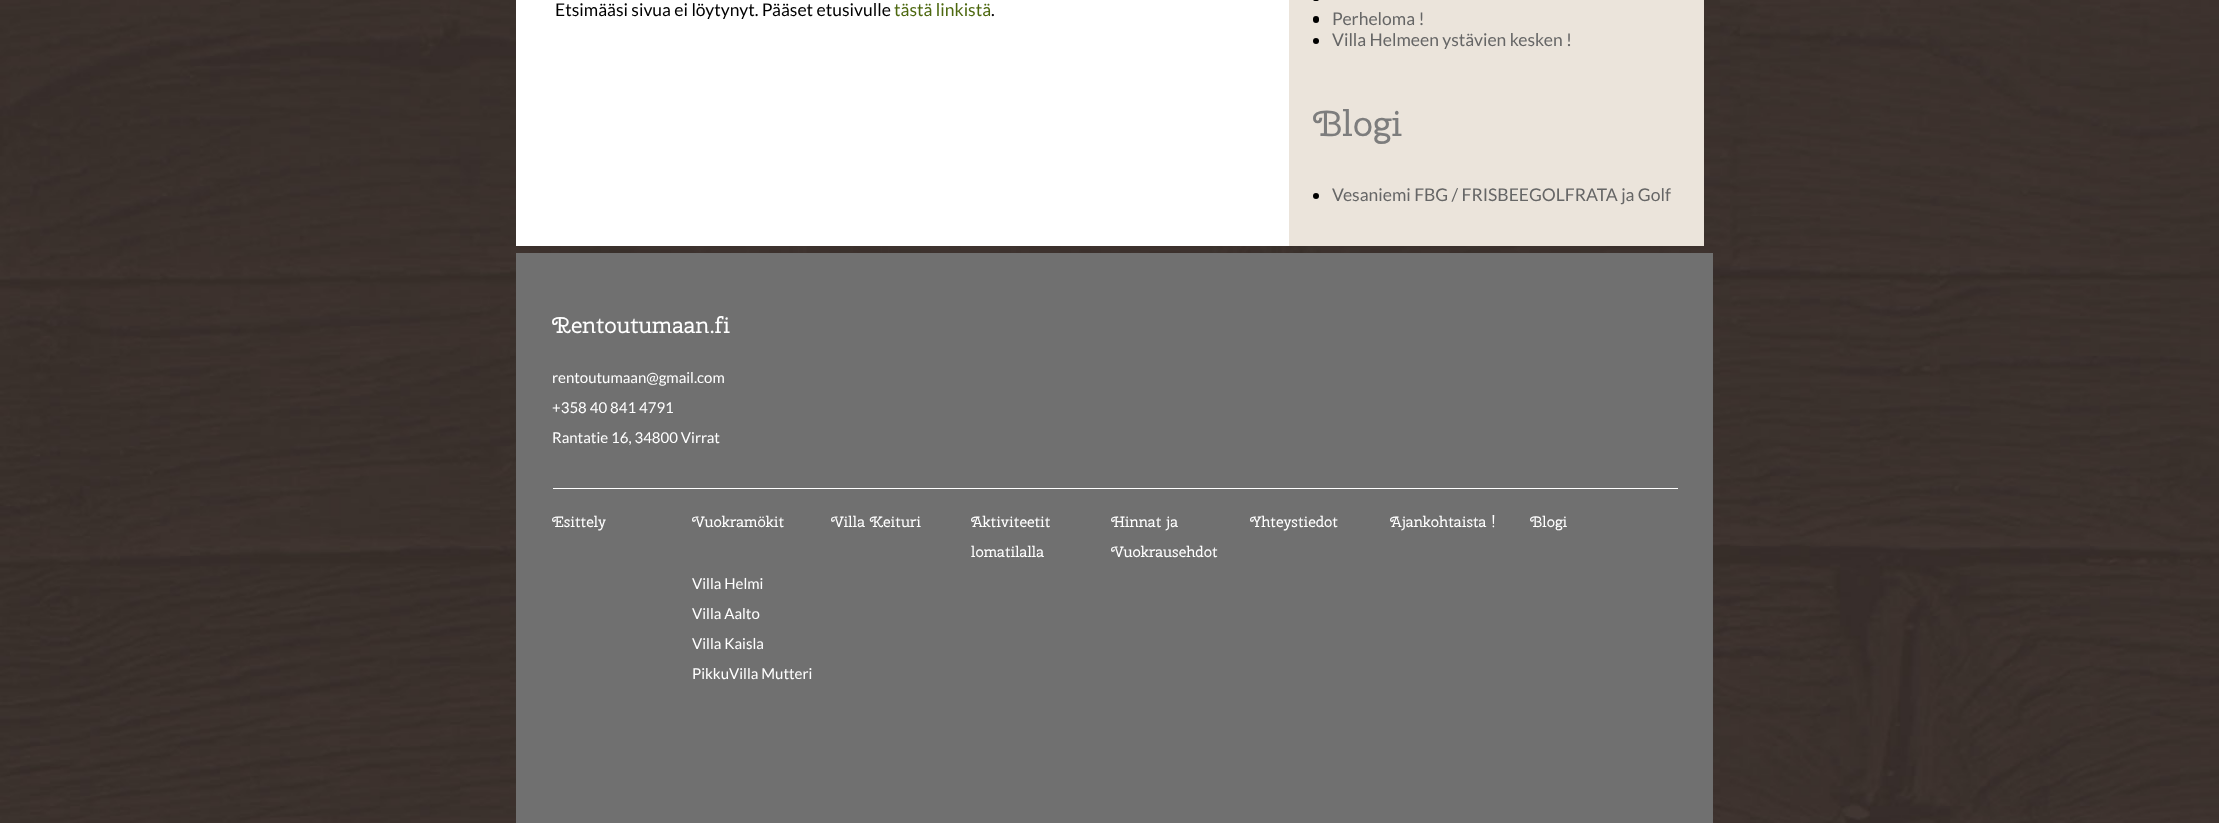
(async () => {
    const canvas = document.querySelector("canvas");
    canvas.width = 2219;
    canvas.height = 823;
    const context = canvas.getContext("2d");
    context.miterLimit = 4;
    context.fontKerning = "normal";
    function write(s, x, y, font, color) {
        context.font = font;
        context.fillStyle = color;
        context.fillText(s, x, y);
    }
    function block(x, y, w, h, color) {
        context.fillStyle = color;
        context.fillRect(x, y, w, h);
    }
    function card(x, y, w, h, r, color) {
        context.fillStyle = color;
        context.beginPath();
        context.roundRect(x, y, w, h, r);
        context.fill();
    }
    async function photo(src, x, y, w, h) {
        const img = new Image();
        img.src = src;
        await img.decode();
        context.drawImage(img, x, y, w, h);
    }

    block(0, 0, 2219, 823, "rgb(255, 255, 255)");
    await photo("media/1.png", 0, 0, 2219, 823);
    block(516, 0, 773, 246, "rgb(255, 255, 255)");
    write("Etsimääsi sivua ei löytynyt. Pääset etusivulle", 555, 16, "17.5px Lato", "rgb(0, 0, 0)");
    write("tästä linkistä", 894, 16, "17.5px Lato", "rgb(77, 104, 15)");
    write(".", 991, 16, "17.5px Lato", "rgb(0, 0, 0)");
    block(1289, 0, 415, 246, "rgb(235, 228, 219)");
    card(1313, -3, 6, 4, 3, "rgb(0, 0, 0)");
    card(1313, 16, 6, 7, 3, "rgb(0, 0, 0)");
    write("Perheloma !", 1332, 25, "17.5px Lato", "rgb(102, 102, 102)");
    context.fillStyle = "rgb(0, 0, 0)";
    context.beginPath();
    context.arc(1316, 41, 3, 0, Math.PI * 2);
    context.fill();
    write("Villa Helmeen ystävien kesken !", 1332, 46, "17.5px Lato", "rgb(102, 102, 102)");
    write("Blogi", 1313, 136, "36px Cherry Swash", "rgb(125, 125, 125)");
    context.fillStyle = "rgb(0, 0, 0)";
    context.beginPath();
    context.arc(1316, 196, 3, 0, Math.PI * 2);
    context.fill();
    write("Vesaniemi FBG / FRISBEEGOLFRATA ja Golf", 1332, 201, "17.5px Lato", "rgb(102, 102, 102)");
    block(516, 253, 1197, 570, "rgb(112, 112, 112)");
    write("Rentoutumaan.fi", 552, 333, "22.5px Cherry Swash", "rgb(255, 255, 255)");
    write("rentoutumaan@gmail.com", 552, 383, "15px Lato", "rgb(255, 255, 255)");
    write("+358 40 841 4791", 552, 413, "15px Lato", "rgb(255, 255, 255)");
    write("Rantatie 16, 34800 Virrat", 552, 443, "15px Lato", "rgb(255, 255, 255)");
    block(553, 488, 1125, 1, "rgb(255, 255, 255)");
    write("Esittely", 552, 527, "15px Cherry Swash", "rgb(255, 255, 255)");
    write("Vuokramökit", 692, 527, "15px Cherry Swash", "rgb(255, 255, 255)");
    write("Villa Helmi", 692, 589, "15px Lato", "rgb(255, 255, 255)");
    write("Villa Aalto", 692, 619, "15px Lato", "rgb(255, 255, 255)");
    write("Villa Kaisla", 692, 649, "15px Lato", "rgb(255, 255, 255)");
    write("PikkuVilla Mutteri", 692, 679, "15px Lato", "rgb(255, 255, 255)");
    write("Villa Keituri", 831, 527, "15px Cherry Swash", "rgb(255, 255, 255)");
    write("Aktiviteetit", 971, 527, "15px Cherry Swash", "rgb(255, 255, 255)");
    write("lomatilalla", 971, 557, "15px Cherry Swash", "rgb(255, 255, 255)");
    write("Hinnat ja", 1111, 527, "15px Cherry Swash", "rgb(255, 255, 255)");
    write("Vuokrausehdot", 1111, 557, "15px Cherry Swash", "rgb(255, 255, 255)");
    write("Yhteystiedot", 1250, 527, "15px Cherry Swash", "rgb(255, 255, 255)");
    write("Ajankohtaista !", 1390, 527, "15px Cherry Swash", "rgb(255, 255, 255)");
    write("Blogi", 1530, 527, "15px Cherry Swash", "rgb(255, 255, 255)");
})();
